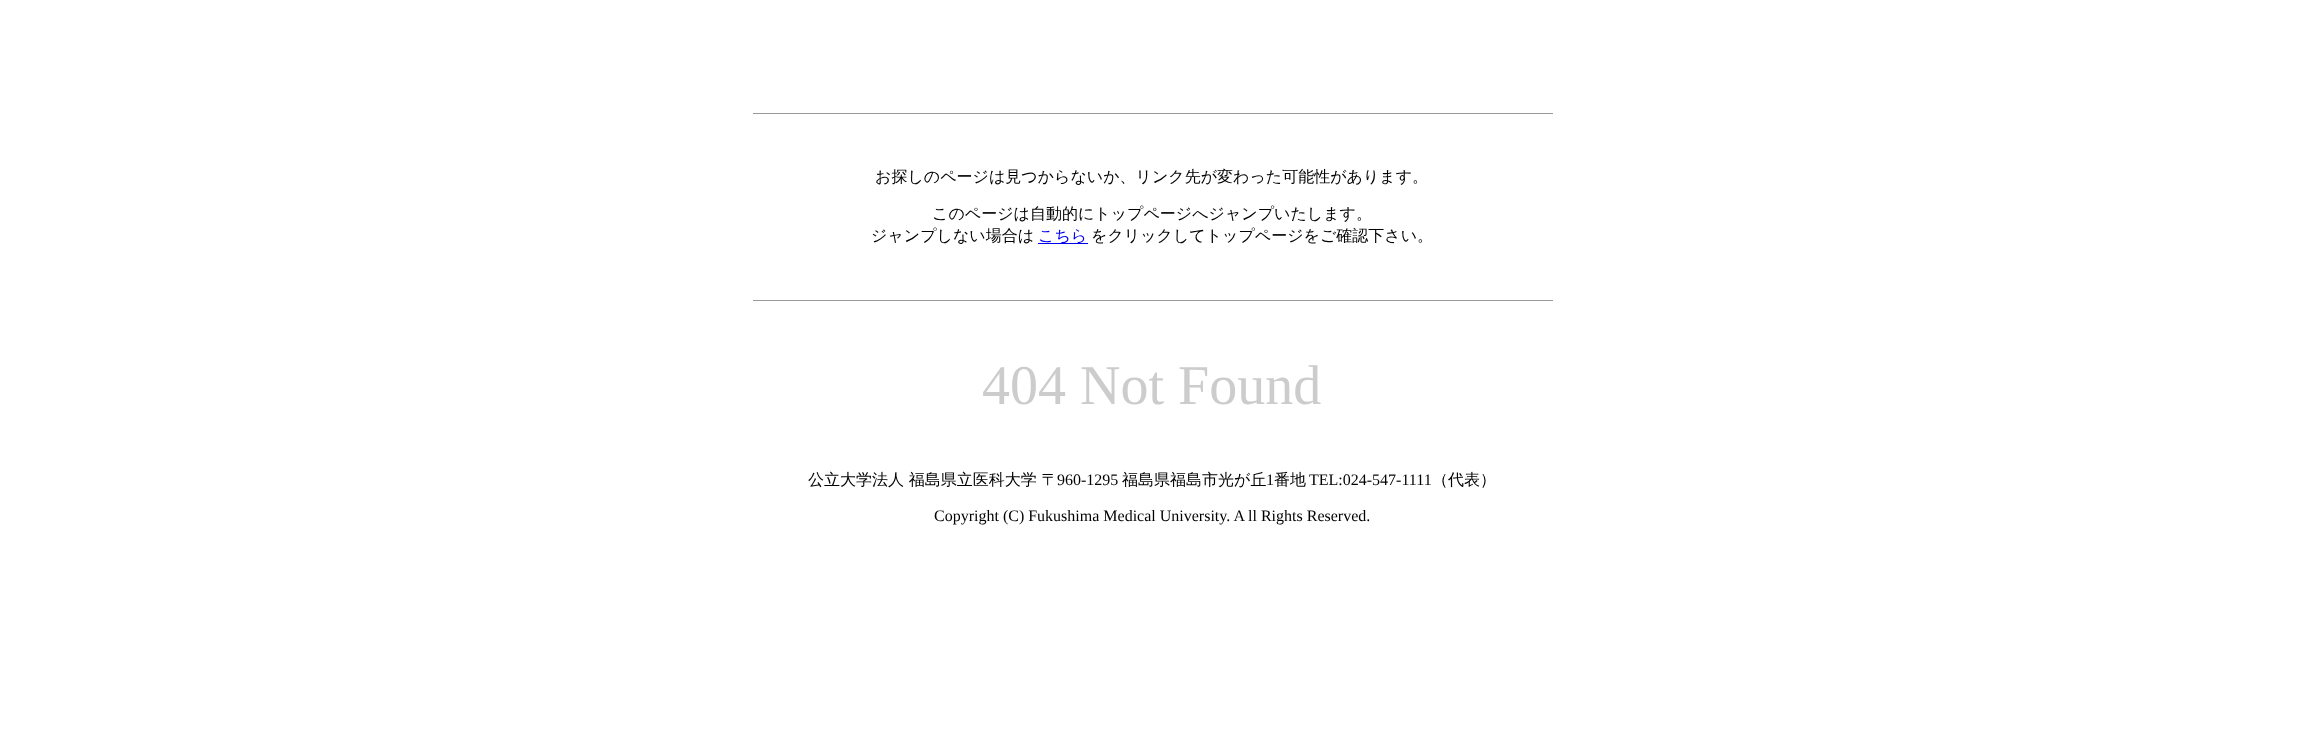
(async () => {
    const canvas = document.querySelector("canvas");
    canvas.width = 2303;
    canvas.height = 743;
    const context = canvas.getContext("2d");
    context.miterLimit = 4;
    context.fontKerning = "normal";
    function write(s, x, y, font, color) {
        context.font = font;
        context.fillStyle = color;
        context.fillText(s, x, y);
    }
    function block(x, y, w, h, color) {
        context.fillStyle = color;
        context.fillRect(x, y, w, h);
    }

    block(0, 0, 2303, 743, "rgb(255, 255, 255)");
    block(753, 113, 800, 1, "rgb(153, 153, 153)");
    block(753, 300, 800, 1, "rgb(153, 153, 153)");
    write("お探しのページは見つからないか、リンク先が変わった可能性があります。", 875, 182, "500 16px WenQuanYi Zen Hei", "rgb(0, 0, 0)");
    write("このページは自動的にトップページへジャンプいたします。", 932, 219, "500 16px WenQuanYi Zen Hei", "rgb(0, 0, 0)");
    write("ジャンプしない場合は", 871, 241, "500 16px WenQuanYi Zen Hei", "rgb(0, 0, 0)");
    block(1038, 243, 50, 1, "rgb(0, 0, 238)");
    write("こちら", 1038, 241, "500 16px WenQuanYi Zen Hei", "rgb(0, 0, 238)");
    write("をクリックしてトップページをご確認下さい。", 1091, 241, "500 16px WenQuanYi Zen Hei", "rgb(0, 0, 0)");
    write("404 Not Found", 982, 404, "56px Liberation Serif", "rgb(204, 204, 204)");
    write("公立大学法人 福島県立医科大学 〒", 808, 485, "500 16px WenQuanYi Zen Hei", "rgb(0, 0, 0)");
    write("960-1295", 1057, 485, "16px Liberation Serif", "rgb(0, 0, 0)");
    write("福島県福島市光が丘", 1122, 485, "500 16px WenQuanYi Zen Hei", "rgb(0, 0, 0)");
    write("1", 1266, 485, "16px Liberation Serif", "rgb(0, 0, 0)");
    write("番地", 1274, 485, "500 16px WenQuanYi Zen Hei", "rgb(0, 0, 0)");
    write("TEL:024-547-1111", 1309, 485, "16px Liberation Serif", "rgb(0, 0, 0)");
    write("（代表）", 1432, 485, "500 16px WenQuanYi Zen Hei", "rgb(0, 0, 0)");
    write("Copyright (C) Fukushima Medical University. A ll Rights Reserved.", 934, 521, "16px Liberation Serif", "rgb(0, 0, 0)");
})();
